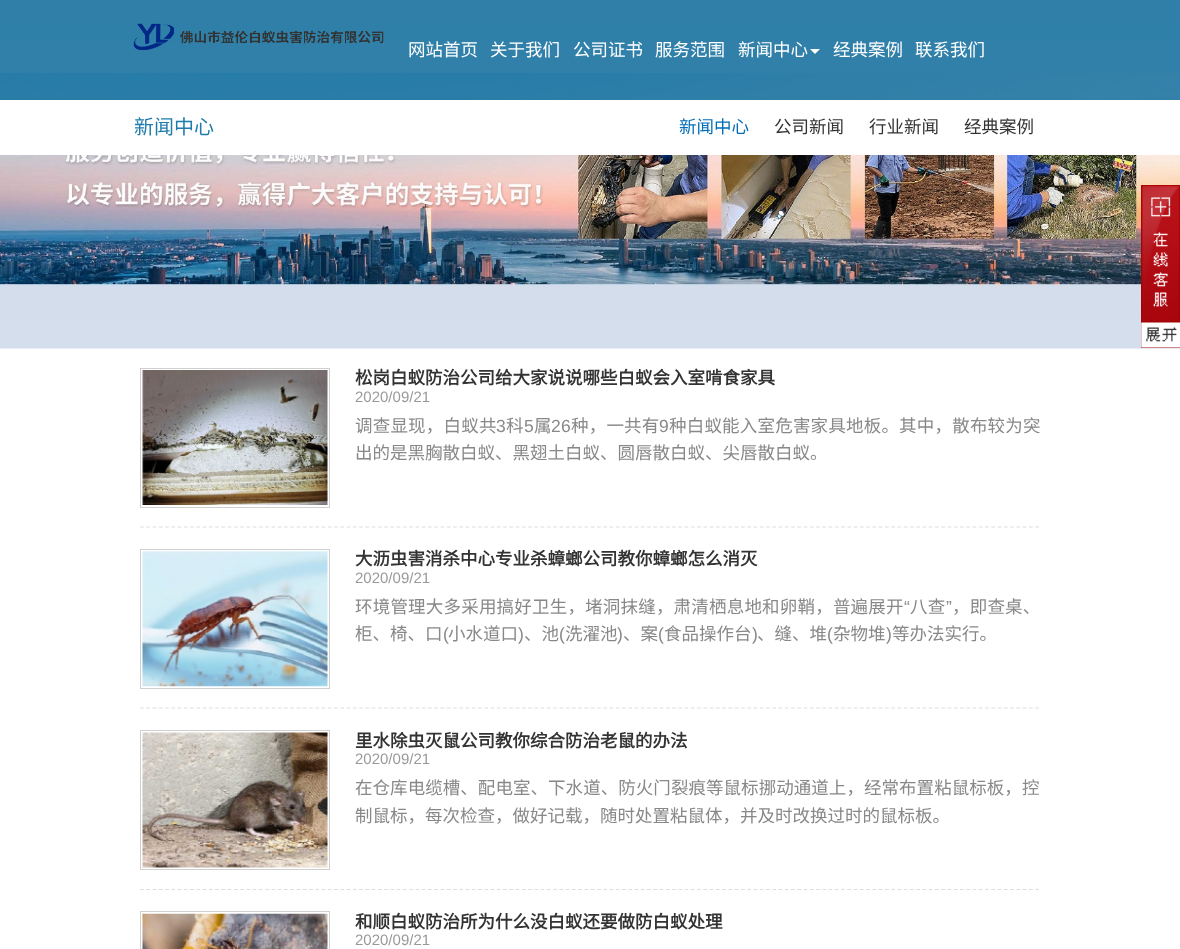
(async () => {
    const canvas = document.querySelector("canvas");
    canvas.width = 1180;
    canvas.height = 949;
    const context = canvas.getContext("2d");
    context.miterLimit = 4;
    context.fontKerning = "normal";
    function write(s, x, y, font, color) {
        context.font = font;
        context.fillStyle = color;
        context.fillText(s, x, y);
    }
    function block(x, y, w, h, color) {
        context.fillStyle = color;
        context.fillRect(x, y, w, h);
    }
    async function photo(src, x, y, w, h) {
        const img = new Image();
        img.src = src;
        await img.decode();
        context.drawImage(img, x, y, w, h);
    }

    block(0, 0, 1180, 949, "rgb(255, 255, 255)");
    await photo("media/2.png", 0, 0, 1180, 349);
    block(0, 0, 1180, 100, "rgba(24, 114, 159, 0.88)");
    await photo("media/1.png", 133, 23, 251, 27);
    write("网站首页", 408, 56, "17.5px Noto Sans CJK SC", "rgb(255, 255, 255)");
    write("关于我们", 490, 56, "17.5px Noto Sans CJK SC", "rgb(255, 255, 255)");
    write("公司证书", 573, 56, "17.5px Noto Sans CJK SC", "rgb(255, 255, 255)");
    write("服务范围", 655, 56, "17.5px Noto Sans CJK SC", "rgb(255, 255, 255)");
    write("新闻中心", 738, 56, "17.5px Noto Sans CJK SC", "rgb(255, 255, 255)");
    context.beginPath();
    context.moveTo(810, 49);
    context.lineTo(820, 49);
    context.lineTo(815, 54);
    context.closePath();
    context.fill();
    write("经典案例", 833, 56, "17.5px Noto Sans CJK SC", "rgb(255, 255, 255)");
    write("联系我们", 915, 56, "17.5px Noto Sans CJK SC", "rgb(255, 255, 255)");
    block(0, 100, 1180, 55, "rgb(255, 255, 255)");
    write("新闻中心", 134, 134, "20px Noto Sans CJK SC", "rgb(32, 125, 171)");
    write("新闻中心", 679, 133, "17.5px Noto Sans CJK SC", "rgb(0, 110, 185)");
    write("公司新闻", 774, 133, "17.5px Noto Sans CJK SC", "rgb(51, 51, 51)");
    write("行业新闻", 869, 133, "17.5px Noto Sans CJK SC", "rgb(51, 51, 51)");
    write("经典案例", 964, 133, "17.5px Noto Sans CJK SC", "rgb(51, 51, 51)");
    block(1141, 185, 39, 163, "rgb(169, 6, 14)");
    await photo("media/3.png", 1141, 185, 39, 163);
    context.beginPath();
    context.moveTo(140, 527);
    context.lineTo(1040, 527);
    context.strokeStyle = "rgb(221, 221, 221)";
    context.lineWidth = 1.2;
    context.setLineDash([3.75, 2.51]);
    context.stroke();
    context.strokeStyle = "rgb(207, 207, 207)";
    context.lineWidth = 1;
    context.setLineDash([]);
    context.strokeRect(140.5, 368.5, 189, 139);
    await photo("media/4.png", 142, 370, 186, 135);
    write("松岗白蚁防治公司给大家说说哪些白蚁会入室啃食家具", 355, 384, "bold 17.5px Noto Sans CJK SC", "rgb(51, 51, 51)");
    write("2020/09/21", 355, 402, "15px Liberation Sans", "rgb(153, 153, 153)");
    context.letterSpacing = "0.2px";
    write("调查显现，白蚁共", 355, 432, "17.5px Noto Sans CJK SC", "rgb(136, 136, 136)");
    write("3", 496, 432, "17.5px Liberation Sans", "rgb(136, 136, 136)");
    write("科", 506, 432, "17.5px Noto Sans CJK SC", "rgb(136, 136, 136)");
    write("5", 524, 432, "17.5px Liberation Sans", "rgb(136, 136, 136)");
    write("属", 534, 432, "17.5px Noto Sans CJK SC", "rgb(136, 136, 136)");
    write("26", 551, 432, "17.5px Liberation Sans", "rgb(136, 136, 136)");
    write("种，一共有", 571, 432, "17.5px Noto Sans CJK SC", "rgb(136, 136, 136)");
    write("9", 659, 432, "17.5px Liberation Sans", "rgb(136, 136, 136)");
    write("种白蚁能入室危害家具地板。其中，散布较为突", 669, 432, "17.5px Noto Sans CJK SC", "rgb(136, 136, 136)");
    context.letterSpacing = "0px";
    write("出的是黑胸散白蚁、黑翅土白蚁、圆唇散白蚁、尖唇散白蚁。", 355, 459, "17.5px Noto Sans CJK SC", "rgb(136, 136, 136)");
    context.beginPath();
    context.moveTo(140, 708);
    context.lineTo(1040, 708);
    context.strokeStyle = "rgb(221, 221, 221)";
    context.lineWidth = 1.2;
    context.setLineDash([3.75, 2.51]);
    context.stroke();
    context.strokeStyle = "rgb(207, 207, 207)";
    context.lineWidth = 1;
    context.setLineDash([]);
    context.strokeRect(140.5, 549.5, 189, 139);
    await photo("media/5.png", 142, 551, 186, 136);
    write("大沥虫害消杀中心专业杀蟑螂公司教你蟑螂怎么消灭", 355, 565, "bold 17.5px Noto Sans CJK SC", "rgb(51, 51, 51)");
    write("2020/09/21", 355, 583, "15px Liberation Sans", "rgb(153, 153, 153)");
    context.letterSpacing = "0.2px";
    write("环境管理大多采用搞好卫生，堵洞抹缝，肃清栖息地和卵鞘，普遍展开", 355, 613, "17.5px Noto Sans CJK SC", "rgb(136, 136, 136)");
    write("“", 904, 613, "17.5px Liberation Sans", "rgb(136, 136, 136)");
    write("八查", 910, 613, "17.5px Noto Sans CJK SC", "rgb(136, 136, 136)");
    write("”", 946, 613, "17.5px Liberation Sans", "rgb(136, 136, 136)");
    write("，即查桌、", 952, 613, "17.5px Noto Sans CJK SC", "rgb(136, 136, 136)");
    context.letterSpacing = "0px";
    write("柜、椅、口", 355, 640, "17.5px Noto Sans CJK SC", "rgb(136, 136, 136)");
    write("(", 443, 640, "17.5px Liberation Sans", "rgb(136, 136, 136)");
    write("小水道口", 448, 640, "17.5px Noto Sans CJK SC", "rgb(136, 136, 136)");
    write(")", 518, 640, "17.5px Liberation Sans", "rgb(136, 136, 136)");
    write("、池", 524, 640, "17.5px Noto Sans CJK SC", "rgb(136, 136, 136)");
    write("(", 559, 640, "17.5px Liberation Sans", "rgb(136, 136, 136)");
    write("洗濯池", 565, 640, "17.5px Noto Sans CJK SC", "rgb(136, 136, 136)");
    write(")", 617, 640, "17.5px Liberation Sans", "rgb(136, 136, 136)");
    write("、案", 623, 640, "17.5px Noto Sans CJK SC", "rgb(136, 136, 136)");
    write("(", 658, 640, "17.5px Liberation Sans", "rgb(136, 136, 136)");
    write("食品操作台", 664, 640, "17.5px Noto Sans CJK SC", "rgb(136, 136, 136)");
    write(")", 752, 640, "17.5px Liberation Sans", "rgb(136, 136, 136)");
    write("、缝、堆", 757, 640, "17.5px Noto Sans CJK SC", "rgb(136, 136, 136)");
    write("(", 827, 640, "17.5px Liberation Sans", "rgb(136, 136, 136)");
    write("杂物堆", 833, 640, "17.5px Noto Sans CJK SC", "rgb(136, 136, 136)");
    write(")", 886, 640, "17.5px Liberation Sans", "rgb(136, 136, 136)");
    write("等办法实行。", 892, 640, "17.5px Noto Sans CJK SC", "rgb(136, 136, 136)");
    context.beginPath();
    context.moveTo(140, 889.5);
    context.lineTo(1040, 889.5);
    context.strokeStyle = "rgb(221, 221, 221)";
    context.lineWidth = 1.2;
    context.setLineDash([3.75, 2.51]);
    context.stroke();
    context.strokeStyle = "rgb(207, 207, 207)";
    context.lineWidth = 1;
    context.setLineDash([]);
    context.strokeRect(140.5, 730.5, 189, 139);
    await photo("media/6.png", 142, 732, 186, 136);
    write("里水除虫灭鼠公司教你综合防治老鼠的办法", 355, 747, "bold 17.5px Noto Sans CJK SC", "rgb(51, 51, 51)");
    write("2020/09/21", 355, 764, "15px Liberation Sans", "rgb(153, 153, 153)");
    context.letterSpacing = "0.05px";
    write("在仓库电缆槽、配电室、下水道、防火门裂痕等鼠标挪动通道上，经常布置粘鼠标板，控", 355, 794, "17.5px Noto Sans CJK SC", "rgb(136, 136, 136)");
    context.letterSpacing = "0px";
    write("制鼠标，每次检查，做好记载，随时处置粘鼠体，并及时改换过时的鼠标板。", 355, 822, "17.5px Noto Sans CJK SC", "rgb(136, 136, 136)");
    context.strokeRect(140.5, 911.5, 189, 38);
    await photo("media/7.png", 142, 913, 186, 36);
    write("和顺白蚁防治所为什么没白蚁还要做防白蚁处理", 355, 928, "bold 17.5px Noto Sans CJK SC", "rgb(51, 51, 51)");
    write("2020/09/21", 355, 945, "15px Liberation Sans", "rgb(153, 153, 153)");
})();
